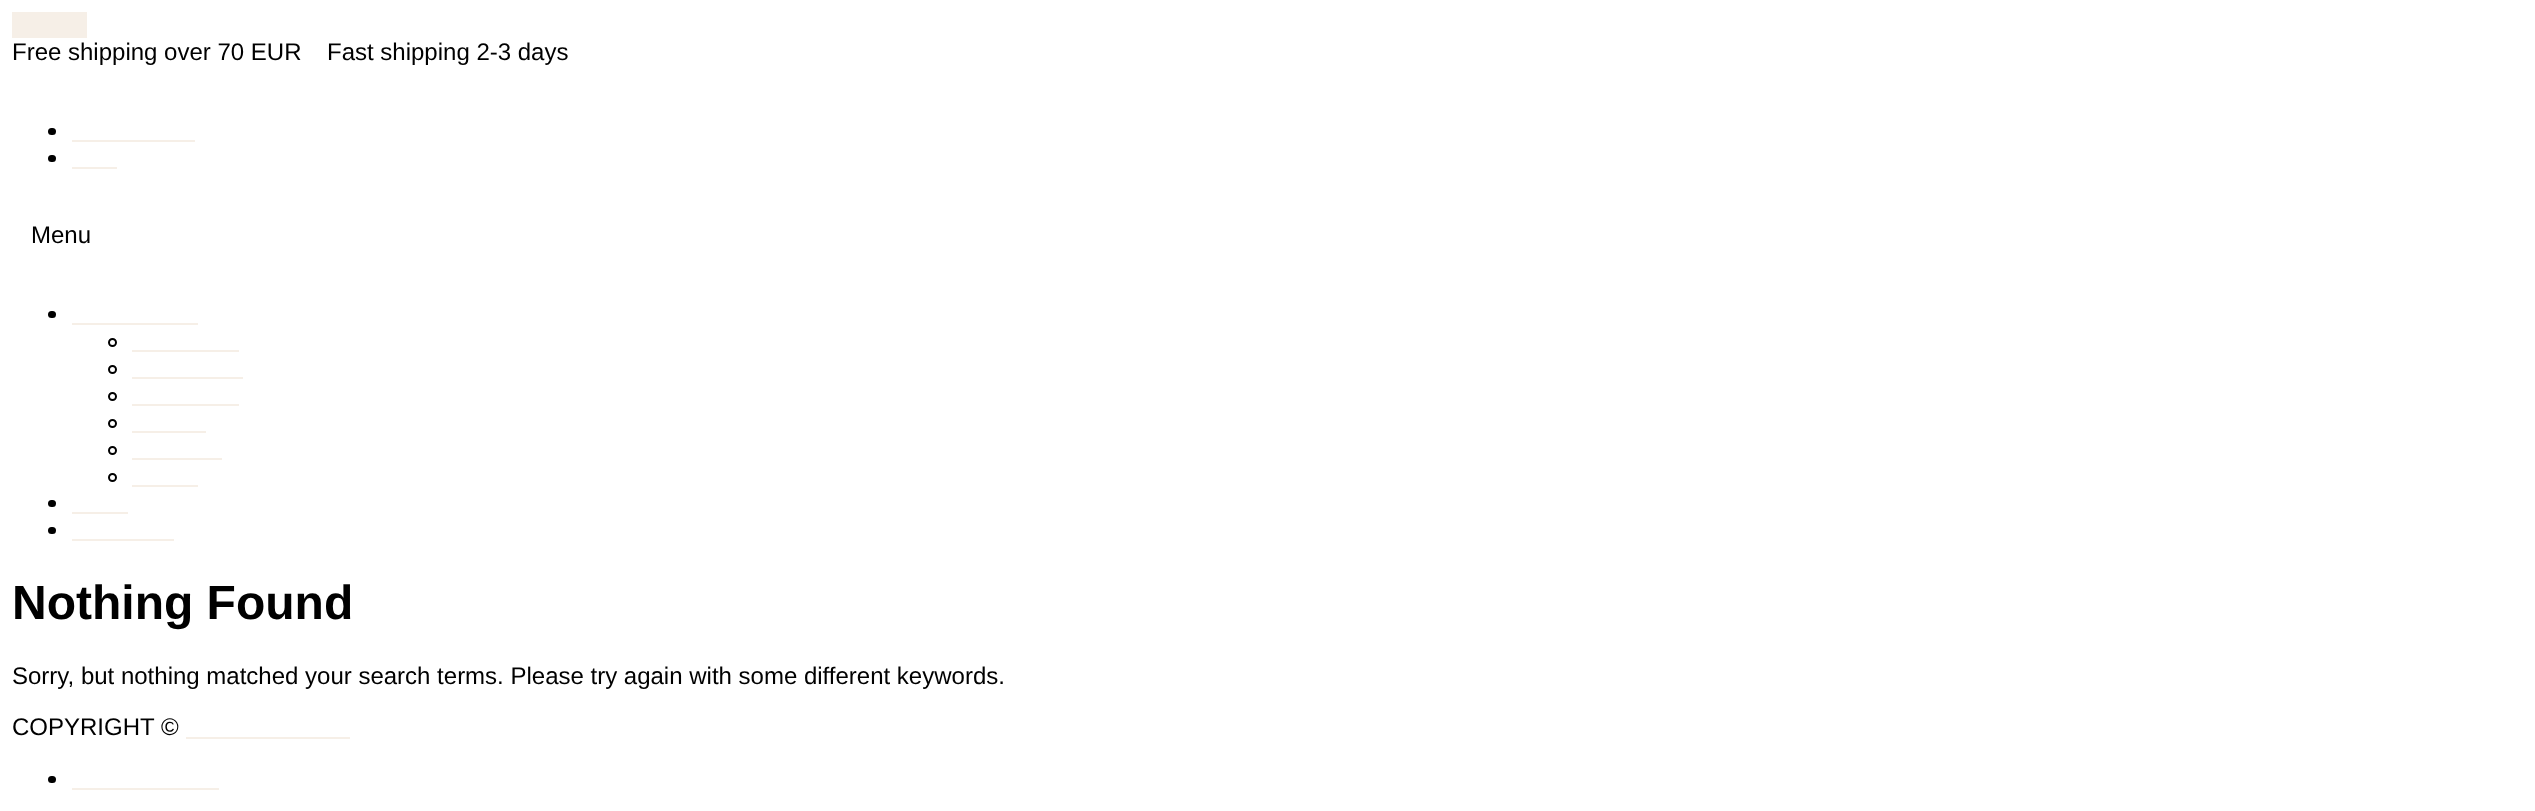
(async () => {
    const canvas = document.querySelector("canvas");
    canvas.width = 2535;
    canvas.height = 811;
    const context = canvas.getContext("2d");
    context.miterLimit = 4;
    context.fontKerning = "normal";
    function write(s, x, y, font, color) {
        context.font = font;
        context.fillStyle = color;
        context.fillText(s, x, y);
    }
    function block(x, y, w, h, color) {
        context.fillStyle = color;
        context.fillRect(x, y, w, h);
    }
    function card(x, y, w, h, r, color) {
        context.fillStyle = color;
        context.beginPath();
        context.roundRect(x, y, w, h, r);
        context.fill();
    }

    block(0, 0, 2535, 811, "rgb(255, 255, 255)");
    block(12, 12, 75, 26, "rgb(246, 239, 231)");
    write("Free shipping over 70 EUR", 12, 60, "24px Liberation Sans", "rgb(0, 0, 0)");
    write("Fast shipping 2-3 days", 327, 60, "24px Liberation Sans", "rgb(0, 0, 0)");
    card(48, 128, 8, 7, 3.5, "rgb(0, 0, 0)");
    block(72, 140, 123, 2, "rgb(246, 239, 231)");
    card(48, 155, 8, 7, 3.5, "rgb(0, 0, 0)");
    block(72, 167, 45, 2, "rgb(246, 239, 231)");
    write("Menu", 31, 243, "24px Liberation Sans", "rgb(0, 0, 0)");
    card(48, 311, 8, 7, 3.5, "rgb(0, 0, 0)");
    block(72, 323, 126, 2, "rgb(246, 239, 231)");
    context.beginPath();
    context.arc(112.5, 342.5, 3.5, 0, Math.PI * 2);
    context.strokeStyle = "rgb(0, 0, 0)";
    context.lineWidth = 2;
    context.stroke();
    block(132, 350, 107, 2, "rgb(246, 239, 231)");
    context.beginPath();
    context.arc(112.5, 369.5, 3.5, 0, Math.PI * 2);
    context.stroke();
    block(132, 377, 111, 2, "rgb(246, 239, 231)");
    context.beginPath();
    context.arc(112.5, 396.5, 3.5, 0, Math.PI * 2);
    context.stroke();
    block(132, 404, 107, 2, "rgb(246, 239, 231)");
    context.beginPath();
    context.arc(112.5, 423.5, 3.5, 0, Math.PI * 2);
    context.stroke();
    block(132, 431, 74, 2, "rgb(246, 239, 231)");
    context.beginPath();
    context.arc(112.5, 450.5, 3.5, 0, Math.PI * 2);
    context.stroke();
    block(132, 458, 90, 2, "rgb(246, 239, 231)");
    context.beginPath();
    context.arc(112.5, 477.5, 3.5, 0, Math.PI * 2);
    context.stroke();
    block(132, 485, 66, 2, "rgb(246, 239, 231)");
    card(48, 500, 8, 7, 3.5, "rgb(0, 0, 0)");
    block(72, 512, 56, 2, "rgb(246, 239, 231)");
    card(48, 527, 8, 7, 3.5, "rgb(0, 0, 0)");
    block(72, 539, 102, 2, "rgb(246, 239, 231)");
    write("Nothing Found", 12, 619, "bold 48px Liberation Sans", "rgb(0, 0, 0)");
    write("Sorry, but nothing matched your search terms. Please try again with some different keywords.", 12, 684, "24px Liberation Sans", "rgb(0, 0, 0)");
    write("COPYRIGHT ©", 12, 735, "24px Liberation Sans", "rgb(0, 0, 0)");
    block(186, 737, 164, 2, "rgb(246, 239, 231)");
    card(48, 776, 8, 7, 3.5, "rgb(0, 0, 0)");
    block(72, 788, 147, 2, "rgb(246, 239, 231)");
})();
